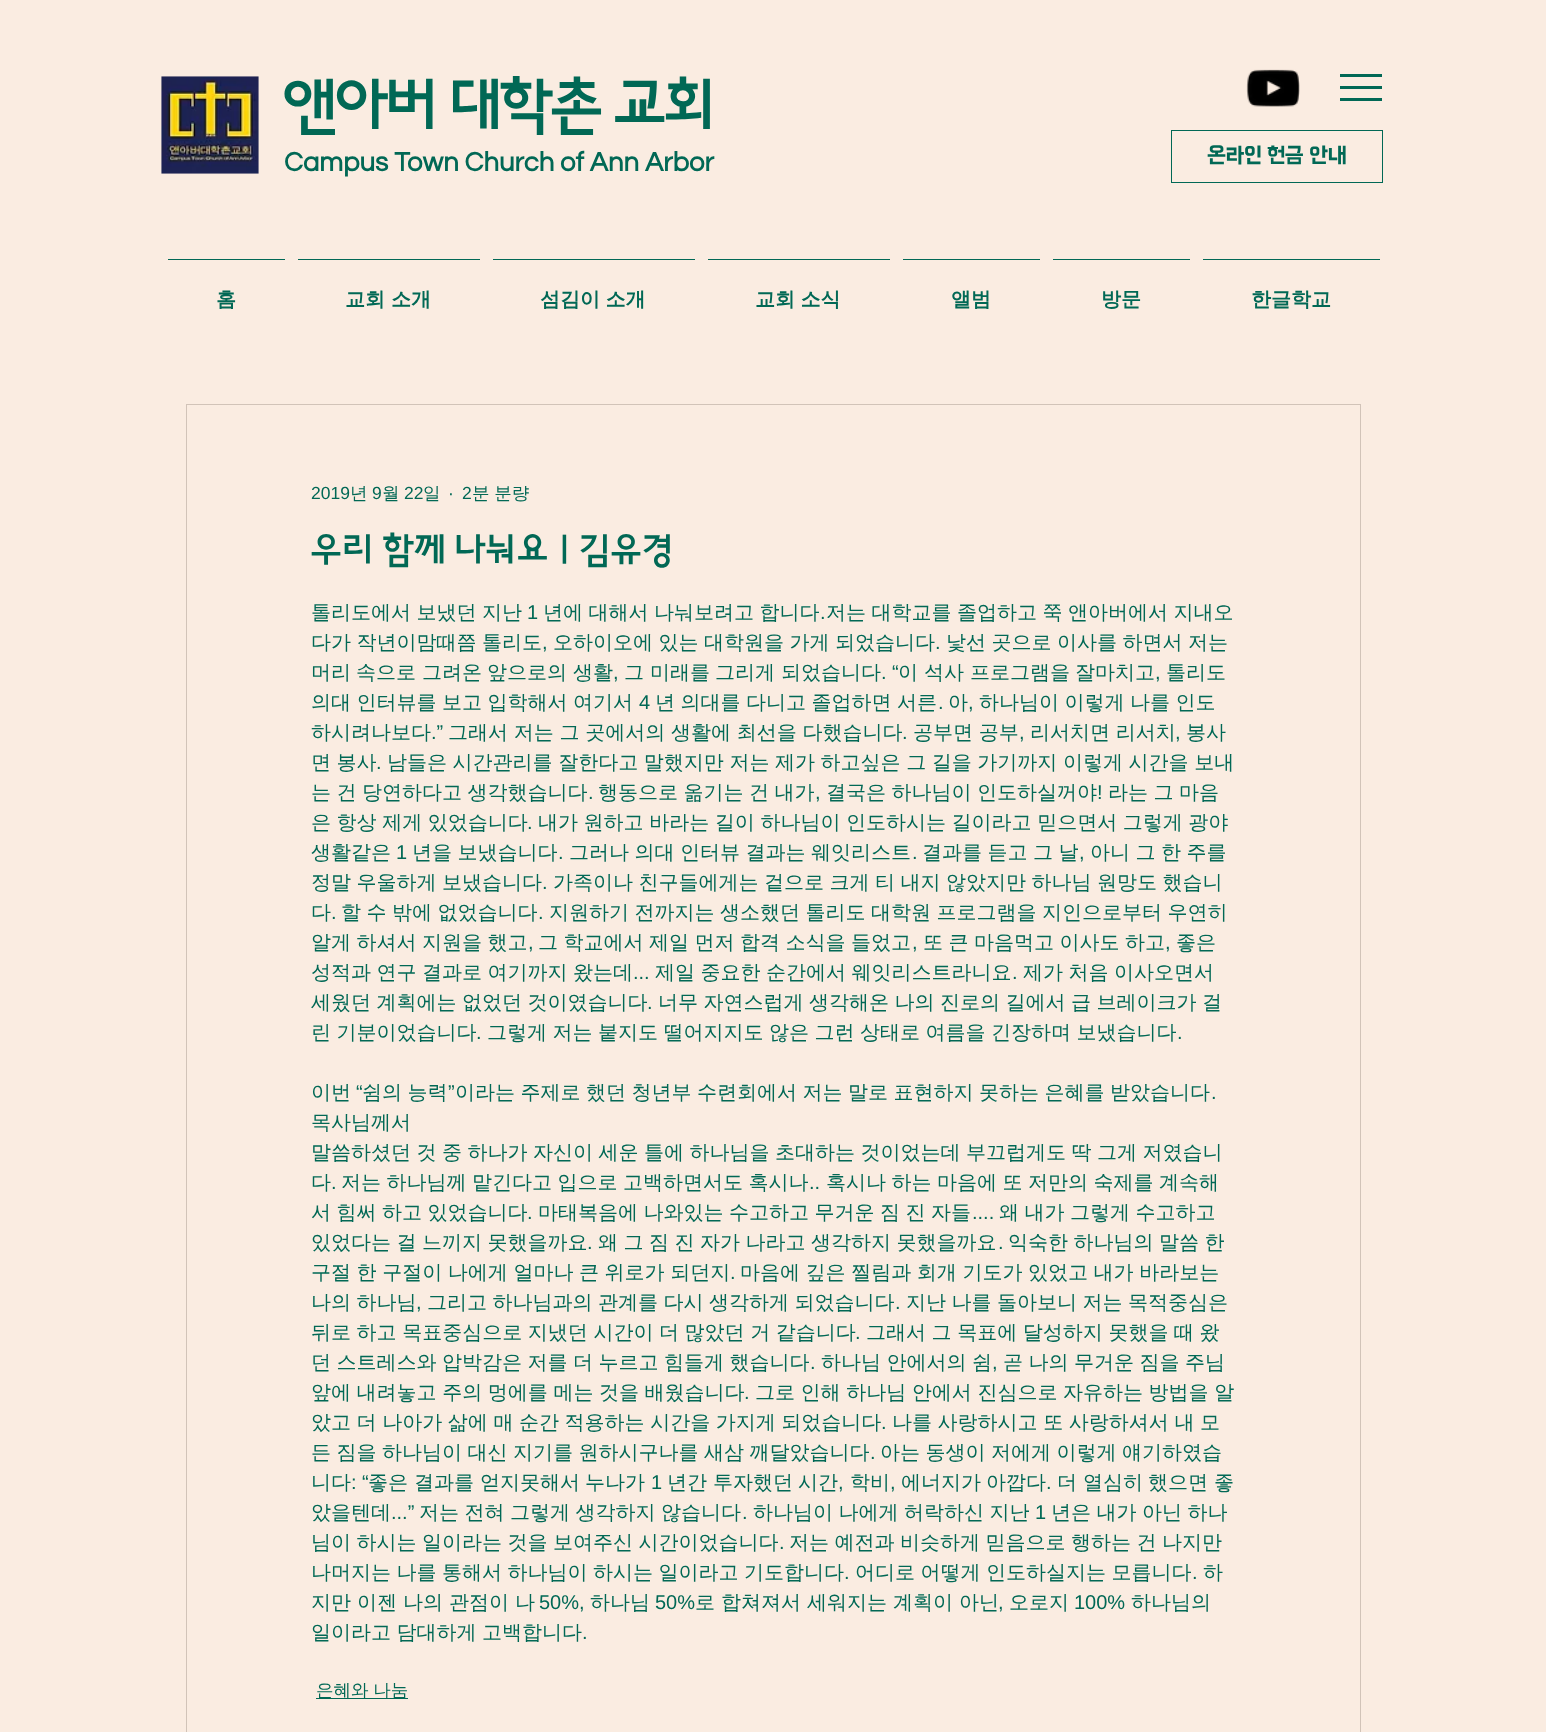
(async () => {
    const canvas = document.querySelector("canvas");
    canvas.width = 1546;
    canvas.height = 1732;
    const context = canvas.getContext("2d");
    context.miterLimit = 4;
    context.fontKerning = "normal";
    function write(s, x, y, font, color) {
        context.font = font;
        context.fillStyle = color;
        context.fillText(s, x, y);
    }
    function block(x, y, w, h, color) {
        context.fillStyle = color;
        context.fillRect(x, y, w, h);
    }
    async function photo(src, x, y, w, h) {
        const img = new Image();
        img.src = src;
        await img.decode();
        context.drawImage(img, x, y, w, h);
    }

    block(0, 0, 1546, 1732, "rgb(250, 236, 225)");
    await photo("media/1.png", 161, 76, 98, 98);
    context.letterSpacing = "-3px";
    write("앤아버 대학촌 교회", 284, 128, "bold 60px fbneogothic", "rgb(1, 104, 85)");
    await photo("media/2.png", 1246, 69, 54, 38);
    block(1340, 98, 42, 3, "rgb(1, 104, 85)");
    block(1340, 74, 42, 3, "rgb(1, 104, 85)");
    block(1340, 86, 42, 3, "rgb(1, 104, 85)");
    context.letterSpacing = "0px";
    write("Campus Town Church of Ann Arbor", 284, 171, "bold 27.5px Questrial", "rgb(1, 104, 85)");
    context.strokeStyle = "rgb(1, 104, 85)";
    context.strokeRect(1171.5, 130.5, 211, 52);
    write("온라인 헌금 안내", 1207, 162, "22.5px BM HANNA", "rgb(1, 104, 85)");
    block(168, 259, 117, 1, "rgb(1, 104, 85)");
    write("홈", 216, 306, "bold 20px WenQuanYi Zen Hei", "rgb(1, 104, 85)");
    block(298, 259, 182, 1, "rgb(1, 104, 85)");
    write("교회", 345, 306, "bold 20px WenQuanYi Zen Hei", "rgb(1, 104, 85)");
    write("소개", 391, 306, "bold 20px WenQuanYi Zen Hei", "rgb(1, 104, 85)");
    block(493, 259, 202, 1, "rgb(1, 104, 85)");
    context.wordSpacing = "-0.5px";
    write("섬김이 소개", 540, 306, "bold 20px WenQuanYi Zen Hei", "rgb(1, 104, 85)");
    block(708, 259, 182, 1, "rgb(1, 104, 85)");
    write("교회 소식", 755, 306, "bold 20px WenQuanYi Zen Hei", "rgb(1, 104, 85)");
    block(903, 259, 137, 1, "rgb(1, 104, 85)");
    context.wordSpacing = "0px";
    write("앨범", 951, 306, "bold 20px WenQuanYi Zen Hei", "rgb(1, 104, 85)");
    block(1053, 259, 137, 1, "rgb(1, 104, 85)");
    write("방문", 1101, 306, "bold 20px WenQuanYi Zen Hei", "rgb(1, 104, 85)");
    block(1203, 259, 177, 1, "rgb(1, 104, 85)");
    write("한글학교", 1251, 306, "bold 20px WenQuanYi Zen Hei", "rgb(1, 104, 85)");
    context.strokeStyle = "rgb(209, 195, 184)";
    context.strokeRect(186.5, 404.5, 1174, 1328);
    write("2019", 311, 499, "17.5px Liberation Sans", "rgb(1, 104, 85)");
    write("년", 350, 499, "500 17.5px WenQuanYi Zen Hei", "rgb(1, 104, 85)");
    write("9", 372, 499, "17.5px Liberation Sans", "rgb(1, 104, 85)");
    write("월", 382, 499, "500 17.5px WenQuanYi Zen Hei", "rgb(1, 104, 85)");
    write("22", 404, 499, "17.5px Liberation Sans", "rgb(1, 104, 85)");
    write("일", 423, 499, "500 17.5px WenQuanYi Zen Hei", "rgb(1, 104, 85)");
    write("·", 448, 499, "17.5px Liberation Sans", "rgb(1, 104, 85)");
    write("2", 462, 499, "17.5px Liberation Sans", "rgb(1, 104, 85)");
    context.wordSpacing = "-0.5px";
    write("분 분량", 472, 499, "500 17.5px WenQuanYi Zen Hei", "rgb(1, 104, 85)");
    context.wordSpacing = "0px";
    write("우리 함께 나눠요 | 김유경", 311, 563, "bold 35px fbneogothic", "rgb(1, 104, 85)");
    context.wordSpacing = "-0.5px";
    write("톨리도에서 보냈던 지난", 311, 619, "500 20px WenQuanYi Zen Hei", "rgb(1, 104, 85)");
    context.wordSpacing = "0px";
    write("1", 527, 619, "20px Liberation Sans", "rgb(1, 104, 85)");
    context.wordSpacing = "-0.5px";
    write("년에 대해서 나눠보려고 합니다", 543, 619, "500 20px WenQuanYi Zen Hei", "rgb(1, 104, 85)");
    context.wordSpacing = "0px";
    write(".", 820, 619, "20px Liberation Sans", "rgb(1, 104, 85)");
    context.wordSpacing = "-0.5px";
    write("저는 대학교를 졸업하고 쭉 앤아버에서 지내오", 826, 619, "500 20px WenQuanYi Zen Hei", "rgb(1, 104, 85)");
    write("다가 작년이맘때쯤 톨리도", 311, 649, "500 20px WenQuanYi Zen Hei", "rgb(1, 104, 85)");
    context.wordSpacing = "0px";
    write(",", 542, 649, "20px Liberation Sans", "rgb(1, 104, 85)");
    context.wordSpacing = "-0.5px";
    write("오하이오에 있는 대학원을 가게 되었습니다", 553, 649, "500 20px WenQuanYi Zen Hei", "rgb(1, 104, 85)");
    context.wordSpacing = "0px";
    write(".", 935, 649, "20px Liberation Sans", "rgb(1, 104, 85)");
    context.wordSpacing = "-0.5px";
    write("낯선 곳으로 이사를 하면서 저는", 946, 649, "500 20px WenQuanYi Zen Hei", "rgb(1, 104, 85)");
    context.wordSpacing = "0px";
    write("머리", 311, 679, "500 20px WenQuanYi Zen Hei", "rgb(1, 104, 85)");
    write("속으로", 356, 679, "500 20px WenQuanYi Zen Hei", "rgb(1, 104, 85)");
    write("그려온", 422, 679, "500 20px WenQuanYi Zen Hei", "rgb(1, 104, 85)");
    write("앞으로의", 487, 679, "500 20px WenQuanYi Zen Hei", "rgb(1, 104, 85)");
    write("생활", 573, 679, "500 20px WenQuanYi Zen Hei", "rgb(1, 104, 85)");
    write(",", 613, 679, "20px Liberation Sans", "rgb(1, 104, 85)");
    write("그", 624, 679, "500 20px WenQuanYi Zen Hei", "rgb(1, 104, 85)");
    write("미래를", 650, 679, "500 20px WenQuanYi Zen Hei", "rgb(1, 104, 85)");
    write("그리게", 715, 679, "500 20px WenQuanYi Zen Hei", "rgb(1, 104, 85)");
    write("되었습니다", 781, 679, "500 20px WenQuanYi Zen Hei", "rgb(1, 104, 85)");
    write(". “", 881, 679, "20px Liberation Sans", "rgb(1, 104, 85)");
    write("이", 898, 679, "500 20px WenQuanYi Zen Hei", "rgb(1, 104, 85)");
    write("석사", 924, 679, "500 20px WenQuanYi Zen Hei", "rgb(1, 104, 85)");
    write("프로그램을", 970, 679, "500 20px WenQuanYi Zen Hei", "rgb(1, 104, 85)");
    write("잘마치고", 1075, 679, "500 20px WenQuanYi Zen Hei", "rgb(1, 104, 85)");
    write(",", 1155, 679, "20px Liberation Sans", "rgb(1, 104, 85)");
    write("톨리도", 1166, 679, "500 20px WenQuanYi Zen Hei", "rgb(1, 104, 85)");
    context.wordSpacing = "-0.5px";
    write("의대 인터뷰를 보고 입학해서 여기서", 311, 709, "500 20px WenQuanYi Zen Hei", "rgb(1, 104, 85)");
    context.wordSpacing = "0px";
    write("4", 639, 709, "20px Liberation Sans", "rgb(1, 104, 85)");
    context.wordSpacing = "-0.5px";
    write("년 의대를 다니고 졸업하면 서른", 655, 709, "500 20px WenQuanYi Zen Hei", "rgb(1, 104, 85)");
    context.wordSpacing = "0px";
    write(".", 938, 709, "20px Liberation Sans", "rgb(1, 104, 85)");
    write("아", 948, 709, "500 20px WenQuanYi Zen Hei", "rgb(1, 104, 85)");
    write(",", 968, 709, "20px Liberation Sans", "rgb(1, 104, 85)");
    context.wordSpacing = "-0.5px";
    write("하나님이 이렇게 나를 인도", 979, 709, "500 20px WenQuanYi Zen Hei", "rgb(1, 104, 85)");
    context.wordSpacing = "0px";
    write("하시려나보다", 311, 739, "500 20px WenQuanYi Zen Hei", "rgb(1, 104, 85)");
    write(".”", 431, 739, "20px Liberation Sans", "rgb(1, 104, 85)");
    context.wordSpacing = "-0.25px";
    write("그래서 저는 그 곳에서의 생활에 최선을 다했습니다", 448, 739, "500 20px WenQuanYi Zen Hei", "rgb(1, 104, 85)");
    context.wordSpacing = "0px";
    write(".", 902, 739, "20px Liberation Sans", "rgb(1, 104, 85)");
    context.wordSpacing = "-0.25px";
    write("공부면 공부", 913, 739, "500 20px WenQuanYi Zen Hei", "rgb(1, 104, 85)");
    context.wordSpacing = "0px";
    write(",", 1019, 739, "20px Liberation Sans", "rgb(1, 104, 85)");
    context.wordSpacing = "-0.25px";
    write("리서치면 리서치", 1030, 739, "500 20px WenQuanYi Zen Hei", "rgb(1, 104, 85)");
    context.wordSpacing = "0px";
    write(",", 1175, 739, "20px Liberation Sans", "rgb(1, 104, 85)");
    write("봉사", 1186, 739, "500 20px WenQuanYi Zen Hei", "rgb(1, 104, 85)");
    context.wordSpacing = "-0.4px";
    write("면 봉사", 311, 769, "500 20px WenQuanYi Zen Hei", "rgb(1, 104, 85)");
    context.wordSpacing = "0px";
    write(".", 376, 769, "20px Liberation Sans", "rgb(1, 104, 85)");
    context.wordSpacing = "-0.4px";
    write("남들은 시간관리를 잘한다고 말했지만 저는 제가 하고싶은 그 길을 가기까지 이렇게 시간을 보내", 387, 769, "500 20px WenQuanYi Zen Hei", "rgb(1, 104, 85)");
    context.wordSpacing = "-0.5px";
    write("는 건 당연하다고 생각했습니다", 311, 799, "500 20px WenQuanYi Zen Hei", "rgb(1, 104, 85)");
    context.wordSpacing = "0px";
    write(".", 588, 799, "20px Liberation Sans", "rgb(1, 104, 85)");
    context.wordSpacing = "-0.5px";
    write("행동으로 옮기는 건 내가", 598, 799, "500 20px WenQuanYi Zen Hei", "rgb(1, 104, 85)");
    context.wordSpacing = "0px";
    write(",", 815, 799, "20px Liberation Sans", "rgb(1, 104, 85)");
    context.wordSpacing = "-0.5px";
    write("결국은 하나님이 인도하실꺼야", 826, 799, "500 20px WenQuanYi Zen Hei", "rgb(1, 104, 85)");
    context.wordSpacing = "0px";
    write("!", 1097, 799, "20px Liberation Sans", "rgb(1, 104, 85)");
    context.wordSpacing = "-0.5px";
    write("라는 그 마음", 1108, 799, "500 20px WenQuanYi Zen Hei", "rgb(1, 104, 85)");
    context.wordSpacing = "-0.4px";
    write("은 항상 제게 있었습니다", 311, 829, "500 20px WenQuanYi Zen Hei", "rgb(1, 104, 85)");
    context.wordSpacing = "0px";
    write(".", 527, 829, "20px Liberation Sans", "rgb(1, 104, 85)");
    context.wordSpacing = "-0.4px";
    write("내가 원하고 바라는 길이 하나님이 인도하시는 길이라고 믿으면서 그렇게 광야", 538, 829, "500 20px WenQuanYi Zen Hei", "rgb(1, 104, 85)");
    context.wordSpacing = "0px";
    write("생활같은", 311, 859, "500 20px WenQuanYi Zen Hei", "rgb(1, 104, 85)");
    write("1", 396, 859, "20px Liberation Sans", "rgb(1, 104, 85)");
    context.wordSpacing = "-0.5px";
    write("년을 보냈습니다", 412, 859, "500 20px WenQuanYi Zen Hei", "rgb(1, 104, 85)");
    context.wordSpacing = "0px";
    write(".", 558, 859, "20px Liberation Sans", "rgb(1, 104, 85)");
    context.wordSpacing = "-0.5px";
    write("그러나 의대 인터뷰 결과는 웨잇리스트", 569, 859, "500 20px WenQuanYi Zen Hei", "rgb(1, 104, 85)");
    context.wordSpacing = "0px";
    write(".", 912, 859, "20px Liberation Sans", "rgb(1, 104, 85)");
    context.wordSpacing = "-0.5px";
    write("결과를 듣고 그 날", 922, 859, "500 20px WenQuanYi Zen Hei", "rgb(1, 104, 85)");
    context.wordSpacing = "0px";
    write(",", 1079, 859, "20px Liberation Sans", "rgb(1, 104, 85)");
    context.wordSpacing = "-0.5px";
    write("아니 그 한 주를", 1090, 859, "500 20px WenQuanYi Zen Hei", "rgb(1, 104, 85)");
    write("정말 우울하게 보냈습니다", 311, 889, "500 20px WenQuanYi Zen Hei", "rgb(1, 104, 85)");
    context.wordSpacing = "0px";
    write(".", 542, 889, "20px Liberation Sans", "rgb(1, 104, 85)");
    context.wordSpacing = "-0.5px";
    write("가족이나 친구들에게는 겉으로 크게 티 내지 않았지만 하나님 원망도 했습니", 553, 889, "500 20px WenQuanYi Zen Hei", "rgb(1, 104, 85)");
    context.wordSpacing = "0px";
    write("다", 311, 919, "500 20px WenQuanYi Zen Hei", "rgb(1, 104, 85)");
    write(".", 331, 919, "20px Liberation Sans", "rgb(1, 104, 85)");
    context.wordSpacing = "-0.5px";
    write("할 수 밖에 없었습니다", 341, 919, "500 20px WenQuanYi Zen Hei", "rgb(1, 104, 85)");
    context.wordSpacing = "0px";
    write(".", 538, 919, "20px Liberation Sans", "rgb(1, 104, 85)");
    context.wordSpacing = "-0.5px";
    write("지원하기 전까지는 생소했던 톨리도 대학원 프로그램을 지인으로부터 우연히", 549, 919, "500 20px WenQuanYi Zen Hei", "rgb(1, 104, 85)");
    write("알게 하셔서 지원을 했고", 311, 949, "500 20px WenQuanYi Zen Hei", "rgb(1, 104, 85)");
    context.wordSpacing = "0px";
    write(",", 528, 949, "20px Liberation Sans", "rgb(1, 104, 85)");
    context.wordSpacing = "-0.5px";
    write("그 학교에서 제일 먼저 합격 소식을 들었고", 538, 949, "500 20px WenQuanYi Zen Hei", "rgb(1, 104, 85)");
    context.wordSpacing = "0px";
    write(",", 912, 949, "20px Liberation Sans", "rgb(1, 104, 85)");
    context.wordSpacing = "-0.5px";
    write("또 큰 마음먹고 이사도 하고", 923, 949, "500 20px WenQuanYi Zen Hei", "rgb(1, 104, 85)");
    context.wordSpacing = "0px";
    write(",", 1165, 949, "20px Liberation Sans", "rgb(1, 104, 85)");
    write("좋은", 1176, 949, "500 20px WenQuanYi Zen Hei", "rgb(1, 104, 85)");
    context.wordSpacing = "-0.5px";
    write("성적과 연구 결과로 여기까지 왔는데", 311, 979, "500 20px WenQuanYi Zen Hei", "rgb(1, 104, 85)");
    context.wordSpacing = "0px";
    write("...", 633, 979, "20px Liberation Sans", "rgb(1, 104, 85)");
    context.wordSpacing = "-0.5px";
    write("제일 중요한 순간에서 웨잇리스트라니요", 655, 979, "500 20px WenQuanYi Zen Hei", "rgb(1, 104, 85)");
    context.wordSpacing = "0px";
    write(".", 1012, 979, "20px Liberation Sans", "rgb(1, 104, 85)");
    context.wordSpacing = "-0.5px";
    write("제가 처음 이사오면서", 1023, 979, "500 20px WenQuanYi Zen Hei", "rgb(1, 104, 85)");
    write("세웠던 계획에는 없었던 것이였습니다", 311, 1009, "500 20px WenQuanYi Zen Hei", "rgb(1, 104, 85)");
    context.wordSpacing = "0px";
    write(".", 647, 1009, "20px Liberation Sans", "rgb(1, 104, 85)");
    context.wordSpacing = "-0.5px";
    write("너무 자연스럽게 생각해온 나의 진로의 길에서 급 브레이크가 걸", 658, 1009, "500 20px WenQuanYi Zen Hei", "rgb(1, 104, 85)");
    write("린 기분이었습니다", 311, 1039, "500 20px WenQuanYi Zen Hei", "rgb(1, 104, 85)");
    context.wordSpacing = "0px";
    write(".", 476, 1039, "20px Liberation Sans", "rgb(1, 104, 85)");
    context.wordSpacing = "-0.5px";
    write("그렇게 저는 붙지도 떨어지지도 않은 그런 상태로 여름을 긴장하며 보냈습니다", 487, 1039, "500 20px WenQuanYi Zen Hei", "rgb(1, 104, 85)");
    context.wordSpacing = "0px";
    write(".", 1177, 1039, "20px Liberation Sans", "rgb(1, 104, 85)");
    write("이번", 311, 1099, "500 20px WenQuanYi Zen Hei", "rgb(1, 104, 85)");
    write("“", 356, 1099, "20px Liberation Sans", "rgb(1, 104, 85)");
    context.wordSpacing = "-0.5px";
    write("쉼의 능력", 362, 1099, "500 20px WenQuanYi Zen Hei", "rgb(1, 104, 85)");
    context.wordSpacing = "0px";
    write("”", 448, 1099, "20px Liberation Sans", "rgb(1, 104, 85)");
    context.wordSpacing = "-0.5px";
    write("이라는 주제로 했던 청년부 수련회에서 저는 말로 표현하지 못하는 은혜를 받았습니다", 455, 1099, "500 20px WenQuanYi Zen Hei", "rgb(1, 104, 85)");
    context.wordSpacing = "0px";
    write(".", 1211, 1099, "20px Liberation Sans", "rgb(1, 104, 85)");
    write("목사님께서", 311, 1129, "500 20px WenQuanYi Zen Hei", "rgb(1, 104, 85)");
    context.wordSpacing = "-0.5px";
    write("말씀하셨던 것 중 하나가 자신이 세운 틀에 하나님을 초대하는 것이었는데 부끄럽게도 딱 그게 저였습니", 311, 1159, "500 20px WenQuanYi Zen Hei", "rgb(1, 104, 85)");
    context.wordSpacing = "0px";
    write("다", 311, 1189, "500 20px WenQuanYi Zen Hei", "rgb(1, 104, 85)");
    write(".", 331, 1189, "20px Liberation Sans", "rgb(1, 104, 85)");
    context.wordSpacing = "-0.5px";
    write("저는 하나님께 맡긴다고 입으로 고백하면서도 혹시나", 341, 1189, "500 20px WenQuanYi Zen Hei", "rgb(1, 104, 85)");
    context.wordSpacing = "0px";
    write("..", 809, 1189, "20px Liberation Sans", "rgb(1, 104, 85)");
    context.wordSpacing = "-0.5px";
    write("혹시나 하는 마음에 또 저만의 숙제를 계속해", 826, 1189, "500 20px WenQuanYi Zen Hei", "rgb(1, 104, 85)");
    write("서 힘써 하고 있었습니다", 311, 1219, "500 20px WenQuanYi Zen Hei", "rgb(1, 104, 85)");
    context.wordSpacing = "0px";
    write(".", 527, 1219, "20px Liberation Sans", "rgb(1, 104, 85)");
    context.wordSpacing = "-0.5px";
    write("마태복음에 나와있는 수고하고 무거운 짐 진 자들", 538, 1219, "500 20px WenQuanYi Zen Hei", "rgb(1, 104, 85)");
    context.wordSpacing = "0px";
    write("....", 972, 1219, "20px Liberation Sans", "rgb(1, 104, 85)");
    context.wordSpacing = "-0.5px";
    write("왜 내가 그렇게 수고하고", 999, 1219, "500 20px WenQuanYi Zen Hei", "rgb(1, 104, 85)");
    write("있었다는 걸 느끼지 못했을까요", 311, 1249, "500 20px WenQuanYi Zen Hei", "rgb(1, 104, 85)");
    context.wordSpacing = "0px";
    write(".", 587, 1249, "20px Liberation Sans", "rgb(1, 104, 85)");
    context.wordSpacing = "-0.5px";
    write("왜 그 짐 진 자가 나라고 생각하지 못했을까요", 598, 1249, "500 20px WenQuanYi Zen Hei", "rgb(1, 104, 85)");
    context.wordSpacing = "0px";
    write(".", 998, 1249, "20px Liberation Sans", "rgb(1, 104, 85)");
    context.wordSpacing = "-0.5px";
    write("익숙한 하나님의 말씀 한", 1008, 1249, "500 20px WenQuanYi Zen Hei", "rgb(1, 104, 85)");
    context.wordSpacing = "-0.4px";
    write("구절 한 구절이 나에게 얼마나 큰 위로가 되던지", 311, 1279, "500 20px WenQuanYi Zen Hei", "rgb(1, 104, 85)");
    context.wordSpacing = "0px";
    write(".", 730, 1279, "20px Liberation Sans", "rgb(1, 104, 85)");
    context.wordSpacing = "-0.4px";
    write("마음에 깊은 찔림과 회개 기도가 있었고 내가 바라보는", 740, 1279, "500 20px WenQuanYi Zen Hei", "rgb(1, 104, 85)");
    context.wordSpacing = "-0.5px";
    write("나의 하나님", 311, 1309, "500 20px WenQuanYi Zen Hei", "rgb(1, 104, 85)");
    context.wordSpacing = "0px";
    write(",", 416, 1309, "20px Liberation Sans", "rgb(1, 104, 85)");
    context.wordSpacing = "-0.5px";
    write("그리고 하나님과의 관계를 다시 생각하게 되었습니다", 427, 1309, "500 20px WenQuanYi Zen Hei", "rgb(1, 104, 85)");
    context.wordSpacing = "0px";
    write(".", 895, 1309, "20px Liberation Sans", "rgb(1, 104, 85)");
    context.wordSpacing = "-0.5px";
    write("지난 나를 돌아보니 저는 목적중심은", 906, 1309, "500 20px WenQuanYi Zen Hei", "rgb(1, 104, 85)");
    context.wordSpacing = "-0.4px";
    write("뒤로 하고 목표중심으로 지냈던 시간이 더 많았던 거 같습니다", 311, 1339, "500 20px WenQuanYi Zen Hei", "rgb(1, 104, 85)");
    context.wordSpacing = "0px";
    write(".", 855, 1339, "20px Liberation Sans", "rgb(1, 104, 85)");
    context.wordSpacing = "-0.4px";
    write("그래서 그 목표에 달성하지 못했을 때 왔", 866, 1339, "500 20px WenQuanYi Zen Hei", "rgb(1, 104, 85)");
    context.wordSpacing = "-0.5px";
    write("던 스트레스와 압박감은 저를 더 누르고 힘들게 했습니다", 311, 1369, "500 20px WenQuanYi Zen Hei", "rgb(1, 104, 85)");
    context.wordSpacing = "0px";
    write(".", 810, 1369, "20px Liberation Sans", "rgb(1, 104, 85)");
    context.wordSpacing = "-0.5px";
    write("하나님 안에서의 쉼", 821, 1369, "500 20px WenQuanYi Zen Hei", "rgb(1, 104, 85)");
    context.wordSpacing = "0px";
    write(",", 992, 1369, "20px Liberation Sans", "rgb(1, 104, 85)");
    context.wordSpacing = "-0.5px";
    write("곧 나의 무거운 짐을 주님", 1003, 1369, "500 20px WenQuanYi Zen Hei", "rgb(1, 104, 85)");
    context.wordSpacing = "-0.4px";
    write("앞에 내려놓고 주의 멍에를 메는 것을 배웠습니다", 311, 1399, "500 20px WenQuanYi Zen Hei", "rgb(1, 104, 85)");
    context.wordSpacing = "0px";
    write(".", 744, 1399, "20px Liberation Sans", "rgb(1, 104, 85)");
    context.wordSpacing = "-0.4px";
    write("그로 인해 하나님 안에서 진심으로 자유하는 방법을 알", 755, 1399, "500 20px WenQuanYi Zen Hei", "rgb(1, 104, 85)");
    write("았고 더 나아가 삶에 매 순간 적용하는 시간을 가지게 되었습니다", 311, 1429, "500 20px WenQuanYi Zen Hei", "rgb(1, 104, 85)");
    context.wordSpacing = "0px";
    write(".", 881, 1429, "20px Liberation Sans", "rgb(1, 104, 85)");
    context.wordSpacing = "-0.4px";
    write("나를 사랑하시고 또 사랑하셔서 내 모", 892, 1429, "500 20px WenQuanYi Zen Hei", "rgb(1, 104, 85)");
    context.wordSpacing = "-0.5px";
    write("든 짐을 하나님이 대신 지기를 원하시구나를 새삼 깨달았습니다", 311, 1459, "500 20px WenQuanYi Zen Hei", "rgb(1, 104, 85)");
    context.wordSpacing = "0px";
    write(".", 870, 1459, "20px Liberation Sans", "rgb(1, 104, 85)");
    context.wordSpacing = "-0.5px";
    write("아는 동생이 저에게 이렇게 얘기하였습", 880, 1459, "500 20px WenQuanYi Zen Hei", "rgb(1, 104, 85)");
    context.wordSpacing = "0px";
    write("니다", 311, 1489, "500 20px WenQuanYi Zen Hei", "rgb(1, 104, 85)");
    write(": “", 351, 1489, "20px Liberation Sans", "rgb(1, 104, 85)");
    write("좋은", 368, 1489, "500 20px WenQuanYi Zen Hei", "rgb(1, 104, 85)");
    write("결과를", 414, 1489, "500 20px WenQuanYi Zen Hei", "rgb(1, 104, 85)");
    write("얻지못해서", 480, 1489, "500 20px WenQuanYi Zen Hei", "rgb(1, 104, 85)");
    write("누나가", 585, 1489, "500 20px WenQuanYi Zen Hei", "rgb(1, 104, 85)");
    write("1", 651, 1489, "20px Liberation Sans", "rgb(1, 104, 85)");
    write("년간", 667, 1489, "500 20px WenQuanYi Zen Hei", "rgb(1, 104, 85)");
    write("투자했던", 713, 1489, "500 20px WenQuanYi Zen Hei", "rgb(1, 104, 85)");
    write("시간", 798, 1489, "500 20px WenQuanYi Zen Hei", "rgb(1, 104, 85)");
    write(",", 838, 1489, "20px Liberation Sans", "rgb(1, 104, 85)");
    write("학비", 850, 1489, "500 20px WenQuanYi Zen Hei", "rgb(1, 104, 85)");
    write(",", 890, 1489, "20px Liberation Sans", "rgb(1, 104, 85)");
    write("에너지가", 901, 1489, "500 20px WenQuanYi Zen Hei", "rgb(1, 104, 85)");
    write("아깝다", 986, 1489, "500 20px WenQuanYi Zen Hei", "rgb(1, 104, 85)");
    write(".", 1046, 1489, "20px Liberation Sans", "rgb(1, 104, 85)");
    write("더", 1057, 1489, "500 20px WenQuanYi Zen Hei", "rgb(1, 104, 85)");
    write("열심히", 1083, 1489, "500 20px WenQuanYi Zen Hei", "rgb(1, 104, 85)");
    write("했으면", 1148, 1489, "500 20px WenQuanYi Zen Hei", "rgb(1, 104, 85)");
    write("좋", 1214, 1489, "500 20px WenQuanYi Zen Hei", "rgb(1, 104, 85)");
    write("았을텐데", 311, 1519, "500 20px WenQuanYi Zen Hei", "rgb(1, 104, 85)");
    write("...”", 391, 1519, "20px Liberation Sans", "rgb(1, 104, 85)");
    context.wordSpacing = "-0.5px";
    write("저는 전혀 그렇게 생각하지 않습니다", 419, 1519, "500 20px WenQuanYi Zen Hei", "rgb(1, 104, 85)");
    context.wordSpacing = "0px";
    write(".", 742, 1519, "20px Liberation Sans", "rgb(1, 104, 85)");
    context.wordSpacing = "-0.5px";
    write("하나님이 나에게 허락하신 지난", 753, 1519, "500 20px WenQuanYi Zen Hei", "rgb(1, 104, 85)");
    context.wordSpacing = "0px";
    write("1", 1035, 1519, "20px Liberation Sans", "rgb(1, 104, 85)");
    context.wordSpacing = "-0.5px";
    write("년은 내가 아닌 하나", 1051, 1519, "500 20px WenQuanYi Zen Hei", "rgb(1, 104, 85)");
    write("님이 하시는 일이라는 것을 보여주신 시간이었습니다", 311, 1549, "500 20px WenQuanYi Zen Hei", "rgb(1, 104, 85)");
    context.wordSpacing = "0px";
    write(".", 779, 1549, "20px Liberation Sans", "rgb(1, 104, 85)");
    context.wordSpacing = "-0.5px";
    write("저는 예전과 비슷하게 믿음으로 행하는 건 나지만", 789, 1549, "500 20px WenQuanYi Zen Hei", "rgb(1, 104, 85)");
    write("나머지는 나를 통해서 하나님이 하시는 일이라고 기도합니다", 311, 1579, "500 20px WenQuanYi Zen Hei", "rgb(1, 104, 85)");
    context.wordSpacing = "0px";
    write(".", 844, 1579, "20px Liberation Sans", "rgb(1, 104, 85)");
    context.wordSpacing = "-0.5px";
    write("어디로 어떻게 인도하실지는 모릅니다", 855, 1579, "500 20px WenQuanYi Zen Hei", "rgb(1, 104, 85)");
    context.wordSpacing = "0px";
    write(".", 1192, 1579, "20px Liberation Sans", "rgb(1, 104, 85)");
    write("하", 1203, 1579, "500 20px WenQuanYi Zen Hei", "rgb(1, 104, 85)");
    write("지만 이젠 나의 관점이 나", 311, 1609, "500 20px WenQuanYi Zen Hei", "rgb(1, 104, 85)");
    write("50%,", 539, 1609, "20px Liberation Sans", "rgb(1, 104, 85)");
    write("하나님", 590, 1609, "500 20px WenQuanYi Zen Hei", "rgb(1, 104, 85)");
    write("50%", 655, 1609, "20px Liberation Sans", "rgb(1, 104, 85)");
    write("로 합쳐져서 세워지는 계획이 아닌", 695, 1609, "500 20px WenQuanYi Zen Hei", "rgb(1, 104, 85)");
    write(",", 998, 1609, "20px Liberation Sans", "rgb(1, 104, 85)");
    write("오로지", 1009, 1609, "500 20px WenQuanYi Zen Hei", "rgb(1, 104, 85)");
    write("100%", 1074, 1609, "20px Liberation Sans", "rgb(1, 104, 85)");
    write("하나님의", 1131, 1609, "500 20px WenQuanYi Zen Hei", "rgb(1, 104, 85)");
    context.wordSpacing = "-0.5px";
    write("일이라고 담대하게 고백합니다", 311, 1639, "500 20px WenQuanYi Zen Hei", "rgb(1, 104, 85)");
    context.wordSpacing = "0px";
    write(".", 582, 1639, "20px Liberation Sans", "rgb(1, 104, 85)");
    block(316, 1698, 92, 1, "rgb(1, 104, 85)");
    context.wordSpacing = "-0.5px";
    write("은혜와 나눔", 316, 1696, "500 17.5px WenQuanYi Zen Hei", "rgb(1, 104, 85)");
})();
